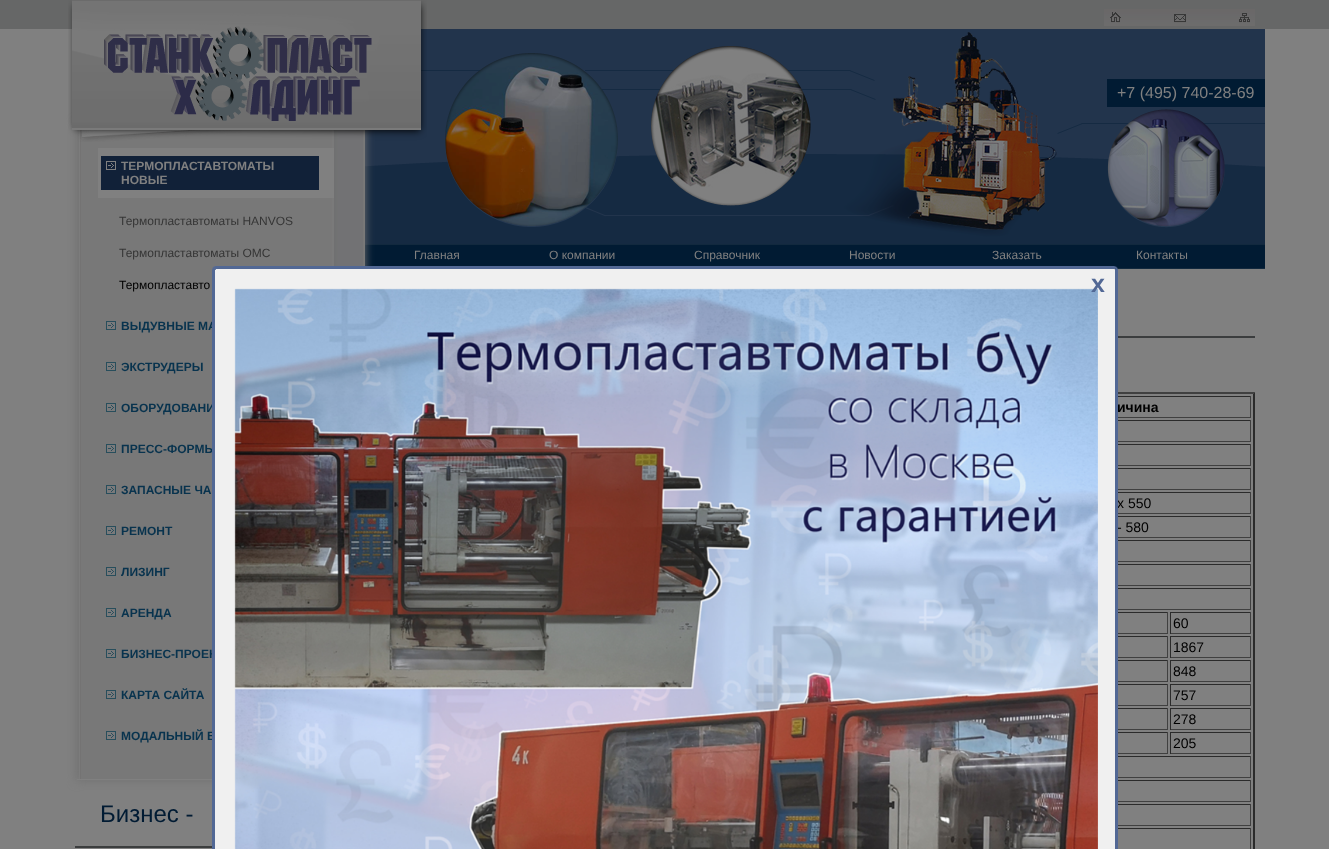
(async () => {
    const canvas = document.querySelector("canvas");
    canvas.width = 1329;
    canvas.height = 849;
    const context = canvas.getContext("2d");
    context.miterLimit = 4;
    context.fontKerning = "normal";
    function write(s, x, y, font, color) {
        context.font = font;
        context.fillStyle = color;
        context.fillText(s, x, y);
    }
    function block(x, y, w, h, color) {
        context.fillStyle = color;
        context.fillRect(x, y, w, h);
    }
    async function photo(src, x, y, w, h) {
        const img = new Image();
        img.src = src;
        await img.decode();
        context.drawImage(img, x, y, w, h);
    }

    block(0, 0, 1329, 849, "rgb(128, 128, 128)");
    block(0, 0, 1329, 29, "rgb(102, 103, 103)");
    await photo("media/6.png", 365, 29, 900, 215);
    block(365, 245, 900, 23, "rgb(1, 27, 51)");
    block(365, 244, 900, 1, "rgb(18, 41, 62)");
    context.fillStyle = "rgb(114, 114, 114)";
    context.filter = "blur(5px)";
    context.beginPath();
    context.rect(76, 122, 289, 659);
    context.fill();
    context.filter = "none";
    await photo("media/2.png", 79, 130, 284, 649);
    await photo("media/1.png", 68, 0, 359, 142);
    block(77, 779, 135, 1, "rgb(128, 128, 128)");
    block(101, 156, 218, 34, "rgb(17, 33, 56)");
    await photo("media/3.png", 106, 161, 10, 9);
    block(98, 148, 221, 8, "rgb(128, 128, 128)");
    block(319, 148, 15, 42, "rgb(128, 128, 128)");
    block(98, 190, 236, 8, "rgb(128, 128, 128)");
    block(98, 148, 3, 50, "rgb(128, 128, 128)");
    write("ТЕРМОПЛАСТАВТОМАТЫ", 121, 170, "bold 12px Liberation Sans", "rgb(128, 128, 128)");
    write("НОВЫЕ", 121, 184, "bold 12px Liberation Sans", "rgb(128, 128, 128)");
    write("Термопластавтоматы HANVOS", 119, 225, "12px Liberation Sans", "rgb(54, 54, 54)");
    write("Термопластавтоматы OMC", 119, 257, "12px Liberation Sans", "rgb(54, 54, 54)");
    write("Термопластавто", 119, 289, "12px Liberation Sans", "rgb(0, 0, 0)");
    await photo("media/4.png", 106, 321, 10, 9);
    write("ВЫДУВНЫЕ МА", 121, 330, "bold 12px Liberation Sans", "rgb(8, 51, 78)");
    await photo("media/4.png", 106, 362, 10, 9);
    write("ЭКСТРУДЕРЫ", 121, 371, "bold 12px Liberation Sans", "rgb(8, 51, 78)");
    await photo("media/4.png", 106, 403, 10, 9);
    write("ОБОРУДОВАНИ", 121, 412, "bold 12px Liberation Sans", "rgb(8, 51, 78)");
    await photo("media/4.png", 106, 444, 10, 9);
    write("ПРЕСС-ФОРМЫ", 121, 453, "bold 12px Liberation Sans", "rgb(8, 51, 78)");
    await photo("media/4.png", 106, 485, 10, 9);
    write("ЗАПАСНЫЕ ЧА", 121, 494, "bold 12px Liberation Sans", "rgb(8, 51, 78)");
    await photo("media/4.png", 106, 526, 10, 9);
    write("РЕМОНТ", 121, 535, "bold 12px Liberation Sans", "rgb(8, 51, 78)");
    await photo("media/4.png", 106, 567, 10, 9);
    write("ЛИЗИНГ", 121, 576, "bold 12px Liberation Sans", "rgb(8, 51, 78)");
    await photo("media/4.png", 106, 608, 10, 9);
    write("АРЕНДА", 121, 617, "bold 12px Liberation Sans", "rgb(8, 51, 78)");
    await photo("media/4.png", 106, 649, 10, 9);
    write("БИЗНЕС-ПРОЕК", 121, 658, "bold 12px Liberation Sans", "rgb(8, 51, 78)");
    await photo("media/4.png", 106, 690, 10, 9);
    write("КАРТА САЙТА", 121, 699, "bold 12px Liberation Sans", "rgb(8, 51, 78)");
    await photo("media/4.png", 106, 731, 10, 9);
    write("МОДАЛЬНЫЙ Б", 121, 740, "bold 12px Liberation Sans", "rgb(8, 51, 78)");
    block(75, 846, 137, 2, "rgb(59, 61, 62)");
    write("Бизнес -", 100, 822, "24px Liberation Sans", "rgb(1, 27, 51)");
    await photo("media/5.png", 1104, 9, 151, 17);
    block(1107, 79, 158, 28, "rgb(1, 27, 51)");
    write("+7 (495) 740-28-69", 1117, 98, "16px Liberation Sans", "rgb(128, 128, 128)");
    block(1115, 268, 150, 1, "rgb(18, 41, 62)");
    write("Главная", 414, 259, "12px Liberation Sans", "rgb(128, 128, 128)");
    write("О компании", 549, 259, "12px Liberation Sans", "rgb(128, 128, 128)");
    write("Справочник", 694, 259, "12px Liberation Sans", "rgb(128, 128, 128)");
    write("Новости", 849, 259, "12px Liberation Sans", "rgb(128, 128, 128)");
    write("Заказать", 992, 259, "12px Liberation Sans", "rgb(128, 128, 128)");
    write("Контакты", 1136, 259, "12px Liberation Sans", "rgb(128, 128, 128)");
    block(1118, 336, 137, 2, "rgb(59, 61, 62)");
    context.fillStyle = "rgb(64, 64, 64)";
    context.beginPath();
    context.moveTo(385, 392);
    context.lineTo(1255, 392);
    context.lineTo(1253, 394);
    context.lineTo(387, 394);
    context.closePath();
    context.fill();
    context.fillStyle = "rgb(43, 43, 43)";
    context.beginPath();
    context.moveTo(1255, 392);
    context.lineTo(1255, 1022);
    context.lineTo(1253, 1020);
    context.lineTo(1253, 394);
    context.closePath();
    context.fill();
    block(1118, 396, 133, 1, "rgb(43, 43, 43)");
    block(1250, 396, 1, 22, "rgb(64, 64, 64)");
    block(1118, 417, 133, 1, "rgb(64, 64, 64)");
    write("ичина", 1117, 412, "bold 14px Liberation Sans", "rgb(0, 0, 0)");
    block(1118, 420, 133, 1, "rgb(43, 43, 43)");
    block(1250, 420, 1, 22, "rgb(64, 64, 64)");
    block(1118, 441, 133, 1, "rgb(64, 64, 64)");
    block(1118, 444, 133, 1, "rgb(43, 43, 43)");
    block(1250, 444, 1, 22, "rgb(64, 64, 64)");
    block(1118, 465, 133, 1, "rgb(64, 64, 64)");
    block(1118, 468, 133, 1, "rgb(43, 43, 43)");
    block(1250, 468, 1, 22, "rgb(64, 64, 64)");
    block(1118, 489, 133, 1, "rgb(64, 64, 64)");
    block(1118, 492, 133, 1, "rgb(43, 43, 43)");
    block(1250, 492, 1, 22, "rgb(64, 64, 64)");
    block(1118, 513, 133, 1, "rgb(64, 64, 64)");
    write("х 550", 1117, 508, "14px Liberation Sans", "rgb(0, 0, 0)");
    block(1118, 516, 133, 1, "rgb(43, 43, 43)");
    block(1250, 516, 1, 22, "rgb(64, 64, 64)");
    block(1118, 537, 133, 1, "rgb(64, 64, 64)");
    write("- 580", 1117, 532, "14px Liberation Sans", "rgb(0, 0, 0)");
    block(1118, 540, 133, 1, "rgb(43, 43, 43)");
    block(1250, 540, 1, 22, "rgb(64, 64, 64)");
    block(1118, 561, 133, 1, "rgb(64, 64, 64)");
    block(1118, 564, 133, 1, "rgb(43, 43, 43)");
    block(1250, 564, 1, 22, "rgb(64, 64, 64)");
    block(1118, 585, 133, 1, "rgb(64, 64, 64)");
    block(1118, 588, 133, 1, "rgb(43, 43, 43)");
    block(1250, 588, 1, 22, "rgb(64, 64, 64)");
    block(1118, 609, 133, 1, "rgb(64, 64, 64)");
    block(1118, 612, 50, 1, "rgb(43, 43, 43)");
    block(1167, 612, 1, 22, "rgb(64, 64, 64)");
    block(1118, 633, 50, 1, "rgb(64, 64, 64)");
    block(1170, 612, 81, 1, "rgb(43, 43, 43)");
    block(1250, 612, 1, 22, "rgb(64, 64, 64)");
    block(1170, 633, 81, 1, "rgb(64, 64, 64)");
    block(1170, 612, 1, 22, "rgb(43, 43, 43)");
    write("60", 1173, 628, "14px Liberation Sans", "rgb(0, 0, 0)");
    block(1118, 636, 50, 1, "rgb(43, 43, 43)");
    block(1167, 636, 1, 22, "rgb(64, 64, 64)");
    block(1118, 657, 50, 1, "rgb(64, 64, 64)");
    block(1170, 636, 81, 1, "rgb(43, 43, 43)");
    block(1250, 636, 1, 22, "rgb(64, 64, 64)");
    block(1170, 657, 81, 1, "rgb(64, 64, 64)");
    block(1170, 636, 1, 22, "rgb(43, 43, 43)");
    write("1867", 1173, 652, "14px Liberation Sans", "rgb(0, 0, 0)");
    block(1118, 660, 50, 1, "rgb(43, 43, 43)");
    block(1167, 660, 1, 22, "rgb(64, 64, 64)");
    block(1118, 681, 50, 1, "rgb(64, 64, 64)");
    block(1170, 660, 81, 1, "rgb(43, 43, 43)");
    block(1250, 660, 1, 22, "rgb(64, 64, 64)");
    block(1170, 681, 81, 1, "rgb(64, 64, 64)");
    block(1170, 660, 1, 22, "rgb(43, 43, 43)");
    write("848", 1173, 676, "14px Liberation Sans", "rgb(0, 0, 0)");
    block(1118, 684, 50, 1, "rgb(43, 43, 43)");
    block(1167, 684, 1, 22, "rgb(64, 64, 64)");
    block(1118, 705, 50, 1, "rgb(64, 64, 64)");
    block(1170, 684, 81, 1, "rgb(43, 43, 43)");
    block(1250, 684, 1, 22, "rgb(64, 64, 64)");
    block(1170, 705, 81, 1, "rgb(64, 64, 64)");
    block(1170, 684, 1, 22, "rgb(43, 43, 43)");
    write("757", 1173, 700, "14px Liberation Sans", "rgb(0, 0, 0)");
    block(1118, 708, 50, 1, "rgb(43, 43, 43)");
    block(1167, 708, 1, 22, "rgb(64, 64, 64)");
    block(1118, 729, 50, 1, "rgb(64, 64, 64)");
    block(1170, 708, 81, 1, "rgb(43, 43, 43)");
    block(1250, 708, 1, 22, "rgb(64, 64, 64)");
    block(1170, 729, 81, 1, "rgb(64, 64, 64)");
    block(1170, 708, 1, 22, "rgb(43, 43, 43)");
    write("278", 1173, 724, "14px Liberation Sans", "rgb(0, 0, 0)");
    block(1118, 732, 50, 1, "rgb(43, 43, 43)");
    block(1167, 732, 1, 22, "rgb(64, 64, 64)");
    block(1118, 753, 50, 1, "rgb(64, 64, 64)");
    block(1170, 732, 81, 1, "rgb(43, 43, 43)");
    block(1250, 732, 1, 22, "rgb(64, 64, 64)");
    block(1170, 753, 81, 1, "rgb(64, 64, 64)");
    block(1170, 732, 1, 22, "rgb(43, 43, 43)");
    write("205", 1173, 748, "14px Liberation Sans", "rgb(0, 0, 0)");
    block(1118, 756, 133, 1, "rgb(43, 43, 43)");
    block(1250, 756, 1, 22, "rgb(64, 64, 64)");
    block(1118, 777, 133, 1, "rgb(64, 64, 64)");
    block(1118, 780, 133, 1, "rgb(43, 43, 43)");
    block(1250, 780, 1, 22, "rgb(64, 64, 64)");
    block(1118, 801, 133, 1, "rgb(64, 64, 64)");
    block(1118, 804, 133, 1, "rgb(43, 43, 43)");
    block(1250, 804, 1, 22, "rgb(64, 64, 64)");
    block(1118, 825, 133, 1, "rgb(64, 64, 64)");
    block(1118, 828, 133, 1, "rgb(43, 43, 43)");
    block(1250, 828, 1, 21, "rgb(64, 64, 64)");
    context.fillStyle = "rgb(240, 240, 240)";
    context.beginPath();
    context.roundRect(215, 269, 900, 580, [1, 1, 0, 0]);
    context.fill();
    context.fillStyle = "rgb(82, 104, 149)";
    context.beginPath();
    context.moveTo(216, 266);
    context.lineTo(213, 267);
    context.lineTo(216, 270);
    context.lineTo(216, 269);
    context.lineTo(1115, 269);
    context.lineTo(1117, 267);
    context.lineTo(1114, 266);
    context.closePath();
    context.fill();
    context.beginPath();
    context.moveTo(1118, 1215);
    context.lineTo(1118, 270);
    context.lineTo(1117, 267);
    context.lineTo(1115, 269);
    context.lineTo(1115, 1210);
    context.closePath();
    context.fill();
    context.beginPath();
    context.moveTo(212, 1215);
    context.lineTo(215, 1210);
    context.lineTo(215, 270);
    context.lineTo(216, 270);
    context.lineTo(213, 267);
    context.lineTo(212, 270);
    context.closePath();
    context.fill();
    await photo("media/7.png", 234, 288, 864, 561);
    write("x", 1091, 292, "bold 25px Liberation Sans", "rgb(82, 104, 149)");
})();
